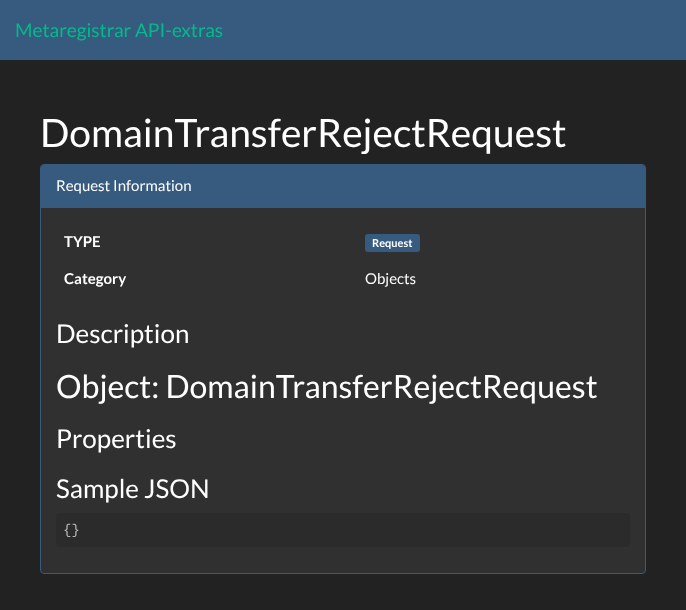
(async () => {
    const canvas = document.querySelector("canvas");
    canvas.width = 686;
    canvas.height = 610;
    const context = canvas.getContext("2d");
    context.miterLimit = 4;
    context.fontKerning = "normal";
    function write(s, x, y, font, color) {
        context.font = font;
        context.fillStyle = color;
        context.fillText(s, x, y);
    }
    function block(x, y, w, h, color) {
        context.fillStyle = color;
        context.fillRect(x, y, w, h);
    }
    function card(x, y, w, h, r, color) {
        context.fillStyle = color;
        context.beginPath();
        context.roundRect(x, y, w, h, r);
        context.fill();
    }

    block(0, 0, 686, 610, "rgb(34, 34, 34)");
    block(0, 0, 686, 60, "rgb(55, 90, 127)");
    write("Metaregistrar API-extras", 15, 37, "19px Lato", "rgb(0, 188, 140)");
    write("DomainTransferRejectRequest", 40, 147, "39px Lato", "rgb(255, 255, 255)");
    context.fillStyle = "rgb(48, 48, 48)";
    context.beginPath();
    context.roundRect(40.5, 164.5, 605, 409, 3.5);
    context.fill();
    context.strokeStyle = "rgb(55, 90, 127)";
    context.stroke();
    context.fillStyle = "rgb(55, 90, 127)";
    context.beginPath();
    context.roundRect(41, 165, 604, 43, [3, 3, 0, 0]);
    context.fill();
    write("Request Information", 56, 191, "15px Lato", "rgb(255, 255, 255)");
    write("TYPE", 64, 247, "bold 15px Lato", "rgb(255, 255, 255)");
    card(365, 234, 55, 18, 3, "rgb(55, 90, 127)");
    write("Request", 372, 247, "bold 11px Lato", "rgb(255, 255, 255)");
    write("Category", 64, 284, "bold 15px Lato", "rgb(255, 255, 255)");
    write("Objects", 365, 284, "15px Lato", "rgb(255, 255, 255)");
    write("Description", 56, 343, "26px Lato", "rgb(255, 255, 255)");
    write("Object: DomainTransferRejectRequest", 56, 398, "32px Lato", "rgb(255, 255, 255)");
    write("Properties", 56, 448, "26px Lato", "rgb(255, 255, 255)");
    write("Sample JSON", 56, 498, "26px Lato", "rgb(255, 255, 255)");
    card(56, 513, 574, 34, 4, "rgb(43, 43, 43)");
    write("{}", 63, 534, "14px Liberation Mono", "rgb(186, 186, 186)");
})();
